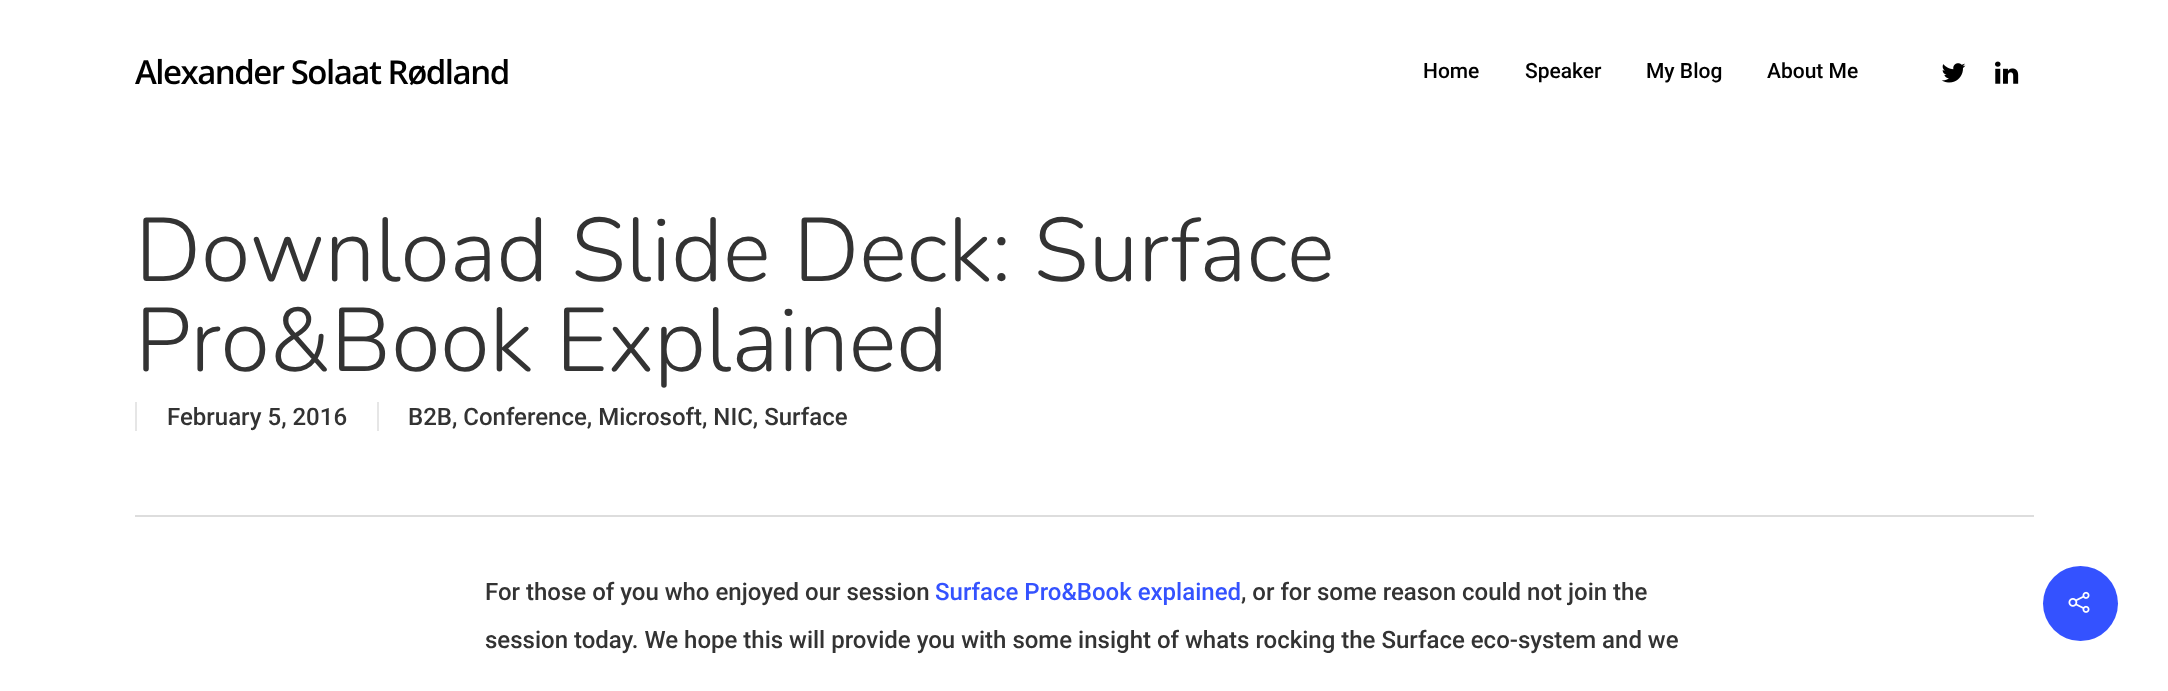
(async () => {
    const canvas = document.querySelector("canvas");
    canvas.width = 2168;
    canvas.height = 691;
    const context = canvas.getContext("2d");
    context.miterLimit = 4;
    context.fontKerning = "normal";
    function write(s, x, y, font, color) {
        context.font = font;
        context.fillStyle = color;
        context.fillText(s, x, y);
    }
    function block(x, y, w, h, color) {
        context.fillStyle = color;
        context.fillRect(x, y, w, h);
    }
    async function photo(src, x, y, w, h) {
        const img = new Image();
        img.src = src;
        await img.decode();
        context.drawImage(img, x, y, w, h);
    }

    block(0, 0, 2168, 691, "rgb(255, 255, 255)");
    context.letterSpacing = "-1.5px";
    write("Alexander Solaat Rødland", 135, 84, "600 33px Open Sans", "rgb(0, 0, 0)");
    context.letterSpacing = "0px";
    write("Home", 1423, 78, "500 21px Roboto", "rgb(0, 0, 0)");
    write("Speaker", 1525, 78, "500 21px Roboto", "rgb(0, 0, 0)");
    write("My Blog", 1646, 78, "500 21px Roboto", "rgb(0, 0, 0)");
    write("About Me", 1767, 78, "500 21px Roboto", "rgb(0, 0, 0)");
    await photo("media/1.png", 1941, 63, 25, 20);
    await photo("media/2.png", 1995, 61, 24, 23);
    block(135, 515, 1899, 2, "rgb(221, 221, 221)");
    write("Download Slide Deck: Surface", 135, 281, "300 90px Nunito", "rgb(51, 51, 51)");
    write("Pro&Book Explained", 135, 371, "300 90px Nunito", "rgb(51, 51, 51)");
    write("February 5, 2016", 167, 425, "500 24px Roboto", "rgb(51, 51, 51)");
    block(135, 402, 2, 29, "rgb(230, 230, 230)");
    write("B2B, Conference, Microsoft, NIC, Surface", 408, 425, "500 24px Roboto", "rgb(51, 51, 51)");
    block(377, 402, 2, 29, "rgb(230, 230, 230)");
    write("For those of you who enjoyed our session", 485, 600, "500 24px Roboto", "rgb(51, 51, 51)");
    write("Surface Pro&Book explained", 935, 600, "500 24px Roboto", "rgb(52, 82, 255)");
    write(", or for some reason could not join the", 1241, 600, "500 24px Roboto", "rgb(51, 51, 51)");
    write("session today. We hope this will provide you with some insight of whats rocking the Surface eco-system and we", 485, 648, "500 24px Roboto", "rgb(51, 51, 51)");
    context.fillStyle = "rgb(52, 82, 255)";
    context.beginPath();
    context.arc(2080.5, 603.5, 37.5, 0, Math.PI * 2);
    context.fill();
    await photo("media/3.png", 2068, 591, 22, 22);
})();
